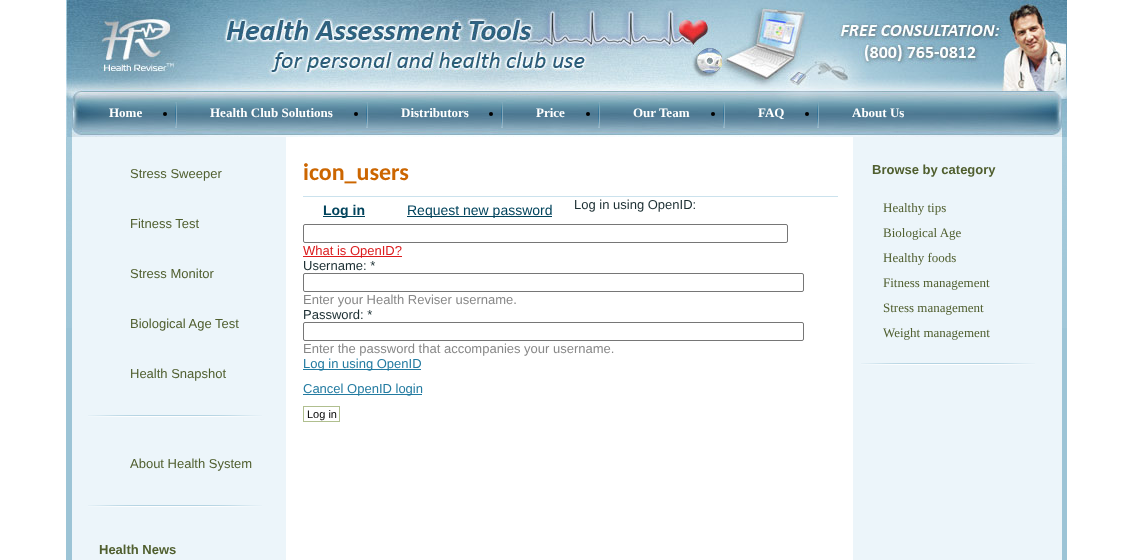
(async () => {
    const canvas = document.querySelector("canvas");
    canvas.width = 1132;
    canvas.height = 560;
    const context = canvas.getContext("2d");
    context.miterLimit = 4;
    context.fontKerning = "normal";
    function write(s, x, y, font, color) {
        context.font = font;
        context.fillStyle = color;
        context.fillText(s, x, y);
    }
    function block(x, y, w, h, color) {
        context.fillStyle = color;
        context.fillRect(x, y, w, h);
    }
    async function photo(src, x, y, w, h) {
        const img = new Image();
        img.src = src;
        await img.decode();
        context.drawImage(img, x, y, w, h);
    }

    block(0, 0, 1132, 560, "rgb(255, 255, 255)");
    await photo("media/1.png", 66, 0, 1001, 137);
    await photo("media/2.png", 175, 102, 2, 26);
    write("Home", 109, 117, "bold 13px Liberation Serif", "rgb(255, 255, 255)");
    await photo("media/2.png", 366, 102, 2, 26);
    context.fillStyle = "rgb(0, 0, 0)";
    context.beginPath();
    context.arc(165, 114, 2, 0, Math.PI * 2);
    context.fill();
    write("Health Club Solutions", 210, 117, "bold 13px Liberation Serif", "rgb(255, 255, 255)");
    await photo("media/2.png", 501, 102, 2, 26);
    context.fillStyle = "rgb(0, 0, 0)";
    context.beginPath();
    context.arc(356, 114, 2, 0, Math.PI * 2);
    context.fill();
    write("Distributors", 401, 117, "bold 13px Liberation Serif", "rgb(255, 255, 255)");
    await photo("media/2.png", 598, 102, 2, 26);
    context.fillStyle = "rgb(0, 0, 0)";
    context.beginPath();
    context.arc(491, 114, 2, 0, Math.PI * 2);
    context.fill();
    write("Price", 536, 117, "bold 13px Liberation Serif", "rgb(255, 255, 255)");
    await photo("media/2.png", 723, 102, 2, 26);
    context.fillStyle = "rgb(0, 0, 0)";
    context.beginPath();
    context.arc(588, 114, 2, 0, Math.PI * 2);
    context.fill();
    write("Our Team", 633, 117, "bold 13px Liberation Serif", "rgb(255, 255, 255)");
    await photo("media/2.png", 817, 102, 2, 26);
    context.fillStyle = "rgb(0, 0, 0)";
    context.beginPath();
    context.arc(713, 114, 2, 0, Math.PI * 2);
    context.fill();
    write("FAQ", 758, 117, "bold 13px Liberation Serif", "rgb(255, 255, 255)");
    context.fillStyle = "rgb(0, 0, 0)";
    context.beginPath();
    context.arc(807, 114, 2, 0, Math.PI * 2);
    context.fill();
    write("About Us", 852, 117, "bold 13px Liberation Serif", "rgb(255, 255, 255)");
    block(66, 328, 1001, 232, "rgb(156, 196, 214)");
    await photo("media/3.png", 66, 137, 1001, 191);
    block(72, 137, 990, 423, "rgb(236, 245, 250)");
    await photo("media/4.png", 88, 415, 174, 2);
    write("Stress Sweeper", 130, 178, "13px Liberation Sans", "rgb(80, 95, 47)");
    write("Fitness Test", 130, 228, "13px Liberation Sans", "rgb(80, 95, 47)");
    write("Stress Monitor", 130, 278, "13px Liberation Sans", "rgb(80, 95, 47)");
    write("Biological Age Test", 130, 328, "13px Liberation Sans", "rgb(80, 95, 47)");
    write("Health Snapshot", 130, 378, "13px Liberation Sans", "rgb(80, 95, 47)");
    await photo("media/4.png", 88, 505, 174, 2);
    write("About Health System", 130, 468, "13px Liberation Sans", "rgb(80, 95, 47)");
    write("Health News", 99, 554, "bold 13px Liberation Sans", "rgb(80, 95, 47)");
    block(286, 137, 567, 423, "rgb(255, 255, 255)");
    block(303, 196, 535, 1, "rgb(203, 226, 237)");
    write("icon_users", 303, 180, "bold 24px Carlito", "rgb(204, 102, 0)");
    block(323, 216, 42, 1, "rgb(0, 67, 92)");
    write("Log in", 323, 215, "bold 14px Liberation Sans", "rgb(0, 67, 92)");
    block(407, 216, 145, 1, "rgb(0, 67, 92)");
    write("Request new password", 407, 215, "14px Liberation Sans", "rgb(0, 67, 92)");
    write("Log in using OpenID:", 574, 209, "13px Liberation Sans", "rgb(27, 46, 50)");
    context.beginPath();
    context.roundRect(303.5, 224.5, 484, 18, 1.5);
    context.strokeStyle = "rgb(118, 118, 118)";
    context.stroke();
    block(303, 256, 99, 1, "rgb(220, 27, 29)");
    write("What is OpenID?", 303, 255, "13px Liberation Sans", "rgb(220, 27, 29)");
    write("Username: *", 303, 270, "13px Liberation Sans", "rgb(27, 46, 50)");
    context.beginPath();
    context.roundRect(303.5, 273.5, 500, 18, 1.5);
    context.stroke();
    write("Enter your Health Reviser username.", 303, 304, "13px Liberation Sans", "rgb(136, 136, 136)");
    write("Password: *", 303, 319, "13px Liberation Sans", "rgb(27, 46, 50)");
    context.beginPath();
    context.roundRect(303.5, 322.5, 500, 18, 1.5);
    context.stroke();
    write("Enter the password that accompanies your username.", 303, 353, "13px Liberation Sans", "rgb(136, 136, 136)");
    block(303, 369, 118, 1, "rgb(35, 123, 161)");
    write("Log in using OpenID", 303, 368, "13px Liberation Sans", "rgb(35, 123, 161)");
    block(303, 394, 119, 1, "rgb(35, 123, 161)");
    write("Cancel OpenID login", 303, 393, "13px Liberation Sans", "rgb(35, 123, 161)");
    context.strokeStyle = "rgb(176, 191, 143)";
    context.strokeRect(303.5, 406.5, 36, 15);
    write("Log in", 307, 418, "11px Liberation Sans", "rgb(0, 0, 0)");
    await photo("media/4.png", 861, 363, 174, 2);
    write("Browse by category", 872, 174, "bold 13px Liberation Sans", "rgb(80, 95, 47)");
    write("Healthy tips", 883, 212, "13px Liberation Serif", "rgb(80, 95, 47)");
    write("Biological Age", 883, 237, "13px Liberation Serif", "rgb(80, 95, 47)");
    write("Healthy foods", 883, 262, "13px Liberation Serif", "rgb(80, 95, 47)");
    write("Fitness management", 883, 287, "13px Liberation Serif", "rgb(80, 95, 47)");
    write("Stress management", 883, 312, "13px Liberation Serif", "rgb(80, 95, 47)");
    write("Weight management", 883, 337, "13px Liberation Serif", "rgb(80, 95, 47)");
})();
